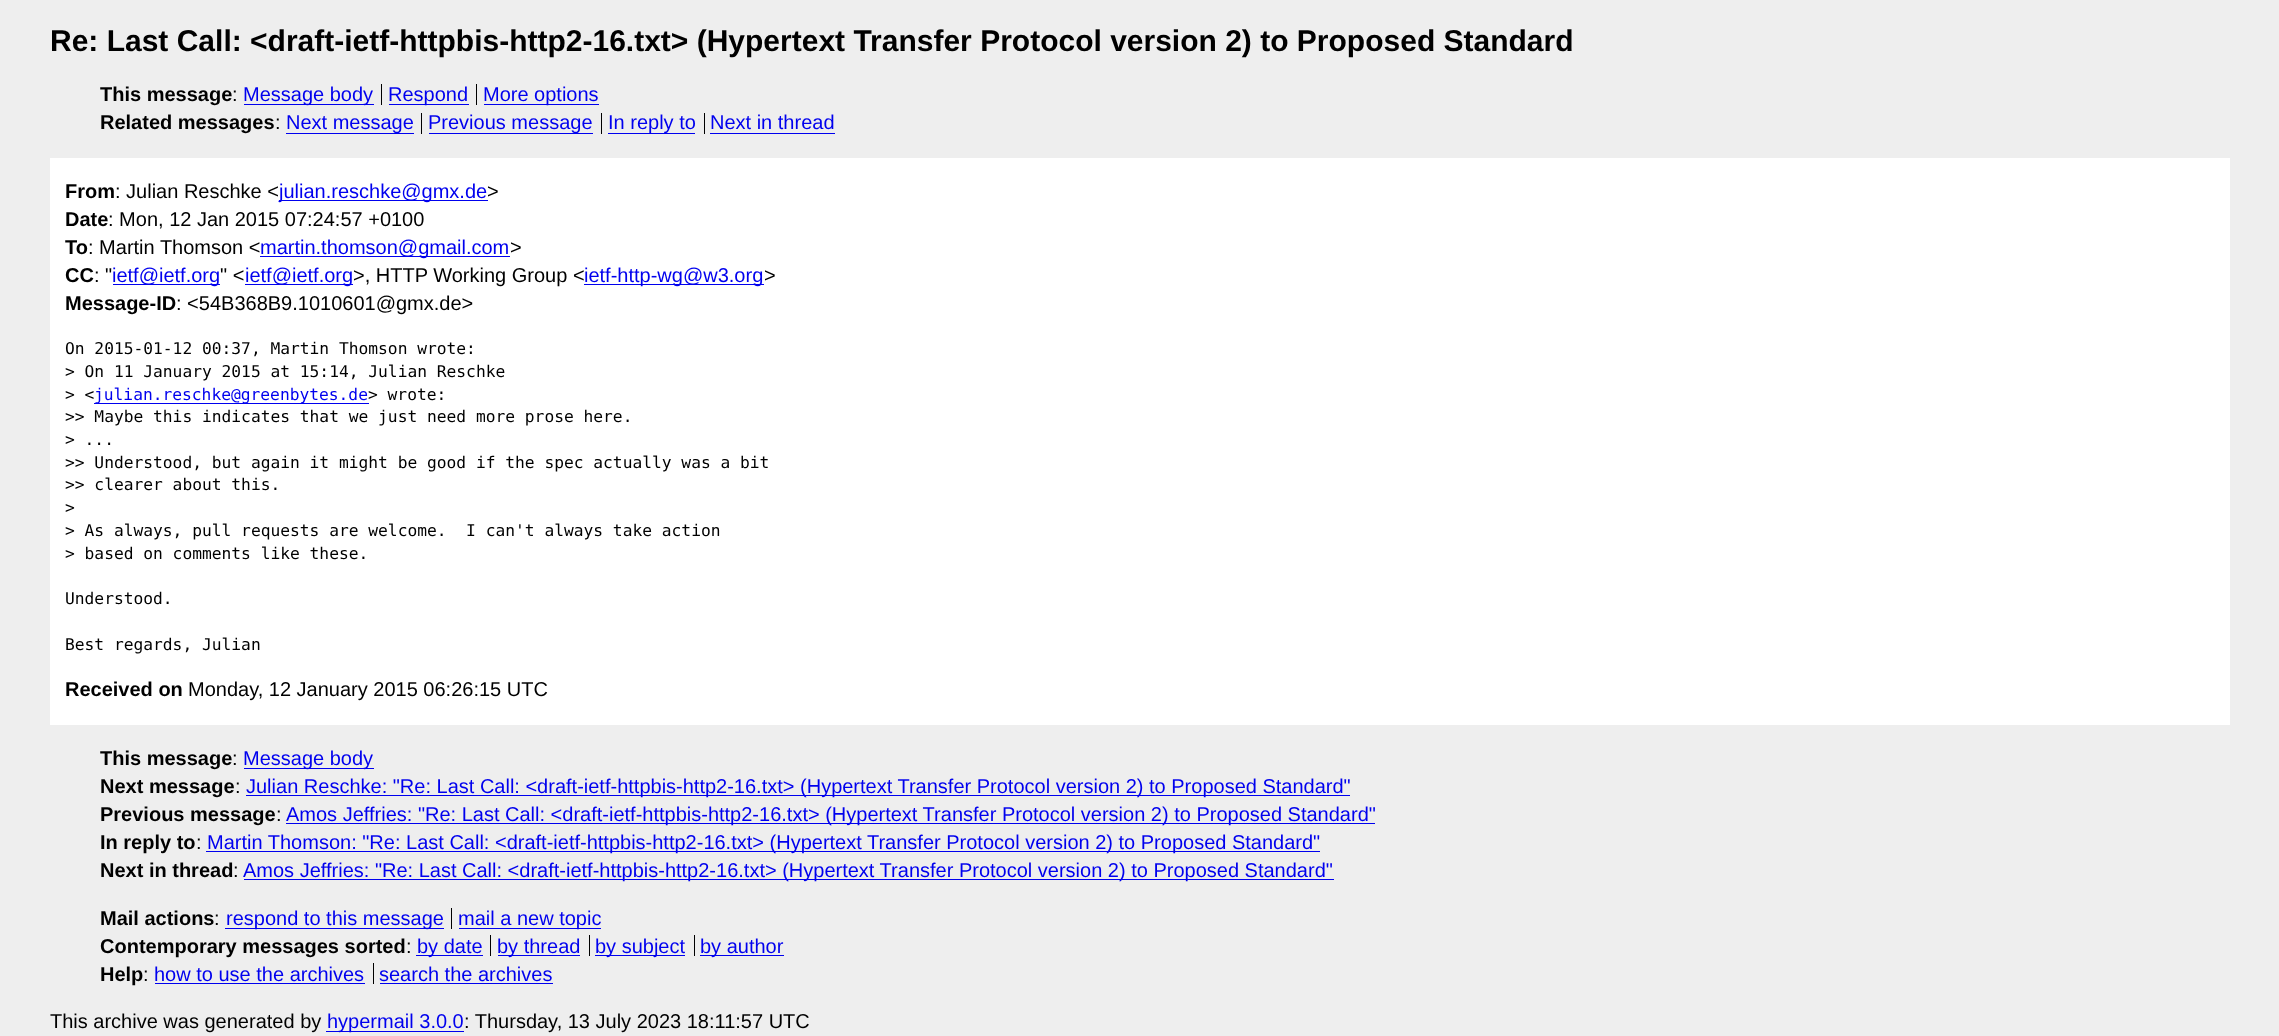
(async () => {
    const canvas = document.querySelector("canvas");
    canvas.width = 2279;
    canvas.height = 1036;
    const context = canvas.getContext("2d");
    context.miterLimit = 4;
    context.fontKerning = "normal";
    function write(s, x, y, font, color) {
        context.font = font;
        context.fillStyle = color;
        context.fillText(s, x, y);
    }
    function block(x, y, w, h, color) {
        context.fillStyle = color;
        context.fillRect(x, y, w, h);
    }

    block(0, 0, 2279, 1036, "rgb(238, 238, 238)");
    write("Re: Last Call: <draft-ietf-httpbis-http2-16.txt> (Hypertext Transfer Protocol version 2) to Proposed Standard", 50, 51, "bold 30px Liberation Sans", "rgb(0, 0, 0)");
    write("This message", 100, 101, "bold 20px Liberation Sans", "rgb(0, 0, 0)");
    write(":", 232, 101, "20px Liberation Sans", "rgb(0, 0, 0)");
    block(244, 104, 130, 1, "rgb(0, 0, 238)");
    write("Message body", 243, 101, "20px Liberation Sans", "rgb(0, 0, 238)");
    block(381, 84, 1, 21, "rgb(0, 0, 0)");
    block(389, 104, 80, 1, "rgb(0, 0, 238)");
    write("Respond", 388, 101, "20px Liberation Sans", "rgb(0, 0, 238)");
    block(484, 104, 115, 1, "rgb(0, 0, 238)");
    write("More options", 483, 101, "20px Liberation Sans", "rgb(0, 0, 238)");
    block(476, 84, 1, 21, "rgb(0, 0, 0)");
    write("Related messages", 100, 129, "bold 20px Liberation Sans", "rgb(0, 0, 0)");
    write(":", 275, 129, "20px Liberation Sans", "rgb(0, 0, 0)");
    block(286, 133, 128, 1, "rgb(0, 0, 238)");
    write("Next message", 286, 129, "20px Liberation Sans", "rgb(0, 0, 238)");
    block(429, 133, 164, 1, "rgb(0, 0, 238)");
    write("Previous message", 428, 129, "20px Liberation Sans", "rgb(0, 0, 238)");
    block(421, 113, 1, 21, "rgb(0, 0, 0)");
    block(608, 133, 87, 1, "rgb(0, 0, 238)");
    write("In reply to", 608, 129, "20px Liberation Sans", "rgb(0, 0, 238)");
    block(601, 113, 1, 21, "rgb(0, 0, 0)");
    write("Next in thread", 710, 129, "20px Liberation Sans", "rgb(0, 0, 238)");
    block(704, 113, 1, 21, "rgb(0, 0, 0)");
    block(710, 133, 125, 1, "rgb(0, 0, 238)");
    block(50, 158, 2180, 567, "rgb(255, 255, 255)");
    write("From", 65, 198, "bold 20px Liberation Sans", "rgb(0, 0, 0)");
    write(": Julian Reschke <", 115, 198, "20px Liberation Sans", "rgb(0, 0, 0)");
    block(279, 200, 209, 1, "rgb(0, 0, 238)");
    write("julian.reschke@gmx.de", 279, 198, "20px Liberation Sans", "rgb(0, 0, 238)");
    write(">", 487, 198, "20px Liberation Sans", "rgb(0, 0, 0)");
    write("Date", 65, 226, "bold 20px Liberation Sans", "rgb(0, 0, 0)");
    write(": Mon, 12 Jan 2015 07:24:57 +0100", 108, 226, "20px Liberation Sans", "rgb(0, 0, 0)");
    write("To", 65, 254, "bold 20px Liberation Sans", "rgb(0, 0, 0)");
    write(": Martin Thomson <", 88, 254, "20px Liberation Sans", "rgb(0, 0, 0)");
    block(260, 256, 250, 1, "rgb(0, 0, 238)");
    write("martin.thomson@gmail.com", 260, 254, "20px Liberation Sans", "rgb(0, 0, 238)");
    write(">", 510, 254, "20px Liberation Sans", "rgb(0, 0, 0)");
    write("CC", 65, 282, "bold 20px Liberation Sans", "rgb(0, 0, 0)");
    write(": \"", 94, 282, "20px Liberation Sans", "rgb(0, 0, 0)");
    block(113, 284, 107, 1, "rgb(0, 0, 238)");
    write("ietf@ietf.org", 112, 282, "20px Liberation Sans", "rgb(0, 0, 238)");
    write("\" <", 220, 282, "20px Liberation Sans", "rgb(0, 0, 0)");
    block(245, 284, 108, 1, "rgb(0, 0, 238)");
    write("ietf@ietf.org", 245, 282, "20px Liberation Sans", "rgb(0, 0, 238)");
    write(">, HTTP Working Group <", 353, 282, "20px Liberation Sans", "rgb(0, 0, 0)");
    block(584, 284, 180, 1, "rgb(0, 0, 238)");
    write("ietf-http-wg@w3.org", 584, 282, "20px Liberation Sans", "rgb(0, 0, 238)");
    write(">", 764, 282, "20px Liberation Sans", "rgb(0, 0, 0)");
    write("Message-ID", 65, 310, "bold 20px Liberation Sans", "rgb(0, 0, 0)");
    write(": <54B368B9.1010601@gmx.de>", 176, 310, "20px Liberation Sans", "rgb(0, 0, 0)");
    write("On 2015-01-12 00:37, Martin Thomson wrote:", 65, 354, "16.25px DejaVu Sans Mono", "rgb(0, 0, 0)");
    write("> On 11 January 2015 at 15:14, Julian Reschke", 65, 377, "16.25px DejaVu Sans Mono", "rgb(0, 0, 0)");
    write("> <", 65, 400, "16.25px DejaVu Sans Mono", "rgb(0, 0, 0)");
    block(94, 403, 275, 1, "rgb(0, 0, 238)");
    write("julian.reschke@greenbytes.de", 94, 400, "16.25px DejaVu Sans Mono", "rgb(0, 0, 238)");
    write("> wrote:", 368, 400, "16.25px DejaVu Sans Mono", "rgb(0, 0, 0)");
    write(">> Maybe this indicates that we just need more prose here.", 65, 422, "16.25px DejaVu Sans Mono", "rgb(0, 0, 0)");
    write("> ...", 65, 445, "16.25px DejaVu Sans Mono", "rgb(0, 0, 0)");
    write(">> Understood, but again it might be good if the spec actually was a bit", 65, 468, "16.25px DejaVu Sans Mono", "rgb(0, 0, 0)");
    write(">> clearer about this.", 65, 490, "16.25px DejaVu Sans Mono", "rgb(0, 0, 0)");
    write(">", 65, 513, "16.25px DejaVu Sans Mono", "rgb(0, 0, 0)");
    write("> As always, pull requests are welcome.  I can't always take action", 65, 536, "16.25px DejaVu Sans Mono", "rgb(0, 0, 0)");
    write("> based on comments like these.", 65, 559, "16.25px DejaVu Sans Mono", "rgb(0, 0, 0)");
    write("Understood.", 65, 604, "16.25px DejaVu Sans Mono", "rgb(0, 0, 0)");
    write("Best regards, Julian", 65, 650, "16.25px DejaVu Sans Mono", "rgb(0, 0, 0)");
    write("Received on", 65, 696, "bold 20px Liberation Sans", "rgb(0, 0, 0)");
    write("Monday, 12 January 2015 06:26:15 UTC", 188, 696, "20px Liberation Sans", "rgb(0, 0, 0)");
    write("This message", 100, 765, "bold 20px Liberation Sans", "rgb(0, 0, 0)");
    write(":", 232, 765, "20px Liberation Sans", "rgb(0, 0, 0)");
    block(244, 768, 130, 1, "rgb(0, 0, 238)");
    write("Message body", 243, 765, "20px Liberation Sans", "rgb(0, 0, 238)");
    write("Next message", 100, 793, "bold 20px Liberation Sans", "rgb(0, 0, 0)");
    write(":", 235, 793, "20px Liberation Sans", "rgb(0, 0, 0)");
    block(246, 795, 1104, 1, "rgb(0, 0, 238)");
    write("Julian Reschke: \"Re: Last Call: <draft-ietf-httpbis-http2-16.txt> (Hypertext Transfer Protocol version 2) to Proposed Standard\"", 246, 793, "20px Liberation Sans", "rgb(0, 0, 238)");
    write("Previous message", 100, 821, "bold 20px Liberation Sans", "rgb(0, 0, 0)");
    write(":", 276, 821, "20px Liberation Sans", "rgb(0, 0, 0)");
    block(286, 823, 1089, 1, "rgb(0, 0, 238)");
    write("Amos Jeffries: \"Re: Last Call: <draft-ietf-httpbis-http2-16.txt> (Hypertext Transfer Protocol version 2) to Proposed Standard\"", 286, 821, "20px Liberation Sans", "rgb(0, 0, 238)");
    write("In reply to", 100, 849, "bold 20px Liberation Sans", "rgb(0, 0, 0)");
    write(":", 196, 849, "20px Liberation Sans", "rgb(0, 0, 0)");
    block(206, 851, 1114, 1, "rgb(0, 0, 238)");
    write("Martin Thomson: \"Re: Last Call: <draft-ietf-httpbis-http2-16.txt> (Hypertext Transfer Protocol version 2) to Proposed Standard\"", 207, 849, "20px Liberation Sans", "rgb(0, 0, 238)");
    write("Next in thread", 100, 877, "bold 20px Liberation Sans", "rgb(0, 0, 0)");
    write(":", 233, 877, "20px Liberation Sans", "rgb(0, 0, 0)");
    block(244, 879, 1090, 1, "rgb(0, 0, 238)");
    write("Amos Jeffries: \"Re: Last Call: <draft-ietf-httpbis-http2-16.txt> (Hypertext Transfer Protocol version 2) to Proposed Standard\"", 243, 877, "20px Liberation Sans", "rgb(0, 0, 238)");
    write("Mail actions", 100, 925, "bold 20px Liberation Sans", "rgb(0, 0, 0)");
    write(":", 214, 925, "20px Liberation Sans", "rgb(0, 0, 0)");
    block(225, 928, 219, 1, "rgb(0, 0, 238)");
    write("respond to this message", 226, 925, "20px Liberation Sans", "rgb(0, 0, 238)");
    block(459, 928, 142, 1, "rgb(0, 0, 238)");
    write("mail a new topic", 458, 925, "20px Liberation Sans", "rgb(0, 0, 238)");
    block(451, 908, 1, 21, "rgb(0, 0, 0)");
    write("Contemporary messages sorted", 100, 953, "bold 20px Liberation Sans", "rgb(0, 0, 0)");
    write(":", 406, 953, "20px Liberation Sans", "rgb(0, 0, 0)");
    block(416, 955, 67, 1, "rgb(0, 0, 238)");
    write("by date", 417, 953, "20px Liberation Sans", "rgb(0, 0, 238)");
    block(498, 955, 82, 1, "rgb(0, 0, 238)");
    write("by thread", 497, 953, "20px Liberation Sans", "rgb(0, 0, 238)");
    block(490, 935, 1, 21, "rgb(0, 0, 0)");
    block(595, 955, 90, 1, "rgb(0, 0, 238)");
    write("by subject", 595, 953, "20px Liberation Sans", "rgb(0, 0, 238)");
    block(589, 935, 1, 21, "rgb(0, 0, 0)");
    block(700, 955, 84, 1, "rgb(0, 0, 238)");
    write("by author", 700, 953, "20px Liberation Sans", "rgb(0, 0, 238)");
    block(694, 935, 1, 21, "rgb(0, 0, 0)");
    write("Help", 100, 981, "bold 20px Liberation Sans", "rgb(0, 0, 0)");
    write(":", 143, 981, "20px Liberation Sans", "rgb(0, 0, 0)");
    write("how to use the archives", 154, 981, "20px Liberation Sans", "rgb(0, 0, 238)");
    block(155, 983, 210, 1, "rgb(0, 0, 238)");
    write("search the archives", 379, 981, "20px Liberation Sans", "rgb(0, 0, 238)");
    block(373, 963, 1, 21, "rgb(0, 0, 0)");
    block(380, 983, 173, 1, "rgb(0, 0, 238)");
    write("This archive was generated by", 50, 1028, "20px Liberation Sans", "rgb(0, 0, 0)");
    block(326, 1031, 138, 1, "rgb(0, 0, 238)");
    write("hypermail 3.0.0", 327, 1028, "20px Liberation Sans", "rgb(0, 0, 238)");
    write(": Thursday, 13 July 2023 18:11:57 UTC", 464, 1028, "20px Liberation Sans", "rgb(0, 0, 0)");
})();
